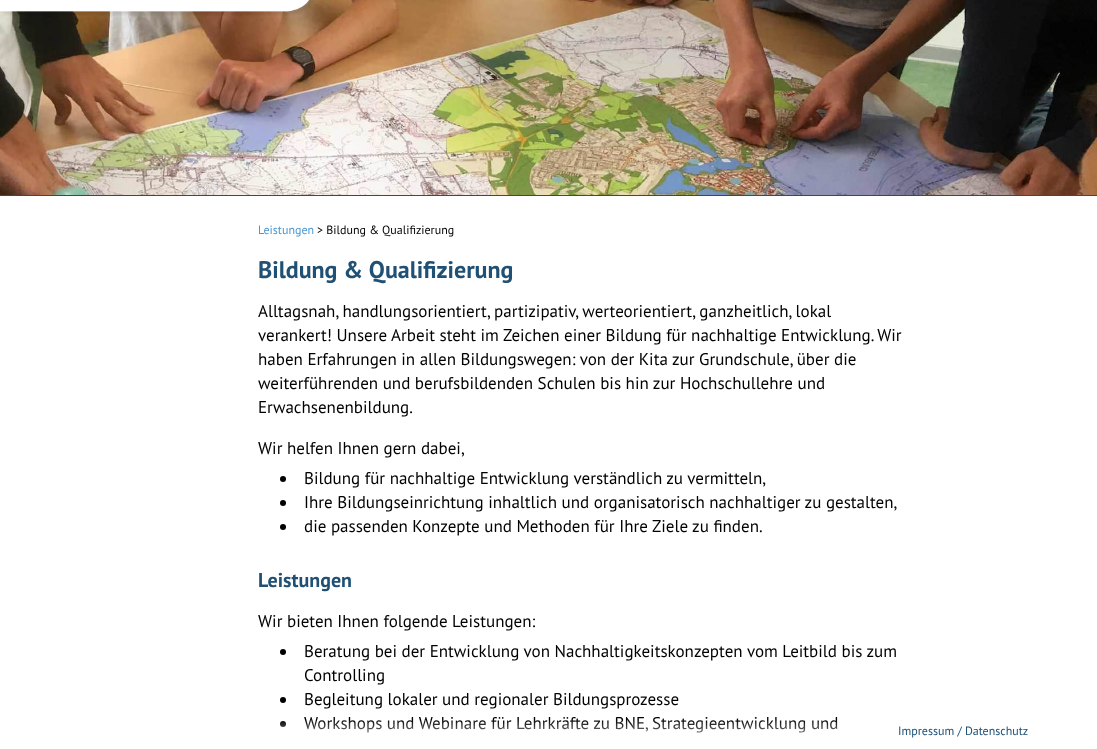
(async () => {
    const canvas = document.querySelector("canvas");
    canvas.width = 1097;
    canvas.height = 749;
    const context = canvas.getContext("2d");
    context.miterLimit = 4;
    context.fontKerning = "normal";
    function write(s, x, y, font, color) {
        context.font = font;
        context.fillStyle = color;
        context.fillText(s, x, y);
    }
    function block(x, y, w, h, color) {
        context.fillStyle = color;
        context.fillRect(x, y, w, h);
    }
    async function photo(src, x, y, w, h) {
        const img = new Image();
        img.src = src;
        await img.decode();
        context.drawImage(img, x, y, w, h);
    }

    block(0, 0, 1097, 749, "rgb(255, 255, 255)");
    block(0, 195, 1097, 1, "rgb(32, 80, 116)");
    await photo("media/1.png", 0, 0, 1097, 195);
    await photo("media/2.png", 0, 0, 314, 16);
    write("Leistungen", 258, 234, "12px PT Sans", "rgb(74, 151, 209)");
    write("> Bildung & Qualifizierung", 317, 234, "12px PT Sans", "rgb(0, 0, 0)");
    write("Bildung & Qualifizierung", 258, 278, "bold 24px PT Sans", "rgb(32, 80, 116)");
    write("Alltagsnah, handlungsorientiert, partizipativ, werteorientiert, ganzheitlich, lokal", 258, 317, "17px PT Sans", "rgb(0, 0, 0)");
    write("verankert! Unsere Arbeit steht im Zeichen einer Bildung für nachhaltige Entwicklung. Wir", 258, 341, "17px PT Sans", "rgb(0, 0, 0)");
    write("haben Erfahrungen in allen Bildungswegen: von der Kita zur Grundschule, über die", 258, 365, "17px PT Sans", "rgb(0, 0, 0)");
    write("weiterführenden und berufsbildenden Schulen bis hin zur Hochschullehre und", 258, 389, "17px PT Sans", "rgb(0, 0, 0)");
    write("Erwachsenenbildung.", 258, 413, "17px PT Sans", "rgb(0, 0, 0)");
    write("Wir helfen Ihnen gern dabei,", 258, 454, "17px PT Sans", "rgb(0, 0, 0)");
    context.beginPath();
    context.arc(283, 479, 3, 0, Math.PI * 2);
    context.fill();
    write("Bildung für nachhaltige Entwicklung verständlich zu vermitteln,", 304, 484, "17px PT Sans", "rgb(0, 0, 0)");
    context.beginPath();
    context.arc(283, 503, 3, 0, Math.PI * 2);
    context.fill();
    write("Ihre Bildungseinrichtung inhaltlich und organisatorisch nachhaltiger zu gestalten,", 304, 508, "17px PT Sans", "rgb(0, 0, 0)");
    context.beginPath();
    context.arc(283, 527, 3, 0, Math.PI * 2);
    context.fill();
    write("die passenden Konzepte und Methoden für Ihre Ziele zu finden.", 304, 532, "17px PT Sans", "rgb(0, 0, 0)");
    write("Leistungen", 258, 587, "bold 20px PT Sans", "rgb(32, 80, 116)");
    write("Wir bieten Ihnen folgende Leistungen:", 258, 627, "17px PT Sans", "rgb(0, 0, 0)");
    context.beginPath();
    context.arc(283, 652, 3, 0, Math.PI * 2);
    context.fill();
    write("Beratung bei der Entwicklung von Nachhaltigkeitskonzepten vom Leitbild bis zum", 304, 657, "17px PT Sans", "rgb(0, 0, 0)");
    write("Controlling", 304, 681, "17px PT Sans", "rgb(0, 0, 0)");
    context.beginPath();
    context.arc(283, 700, 3, 0, Math.PI * 2);
    context.fill();
    write("Begleitung lokaler und regionaler Bildungsprozesse", 304, 705, "17px PT Sans", "rgb(0, 0, 0)");
    context.beginPath();
    context.arc(283, 724, 3, 0, Math.PI * 2);
    context.fill();
    write("Workshops und Webinare für Lehrkräfte zu BNE, Strategieentwicklung und", 304, 729, "17px PT Sans", "rgb(0, 0, 0)");
    await photo("media/3.png", 280, 720, 557, 29);
    write("Impressum / Datenschutz", 898, 735, "12px PT Sans", "rgb(32, 80, 116)");
})();
